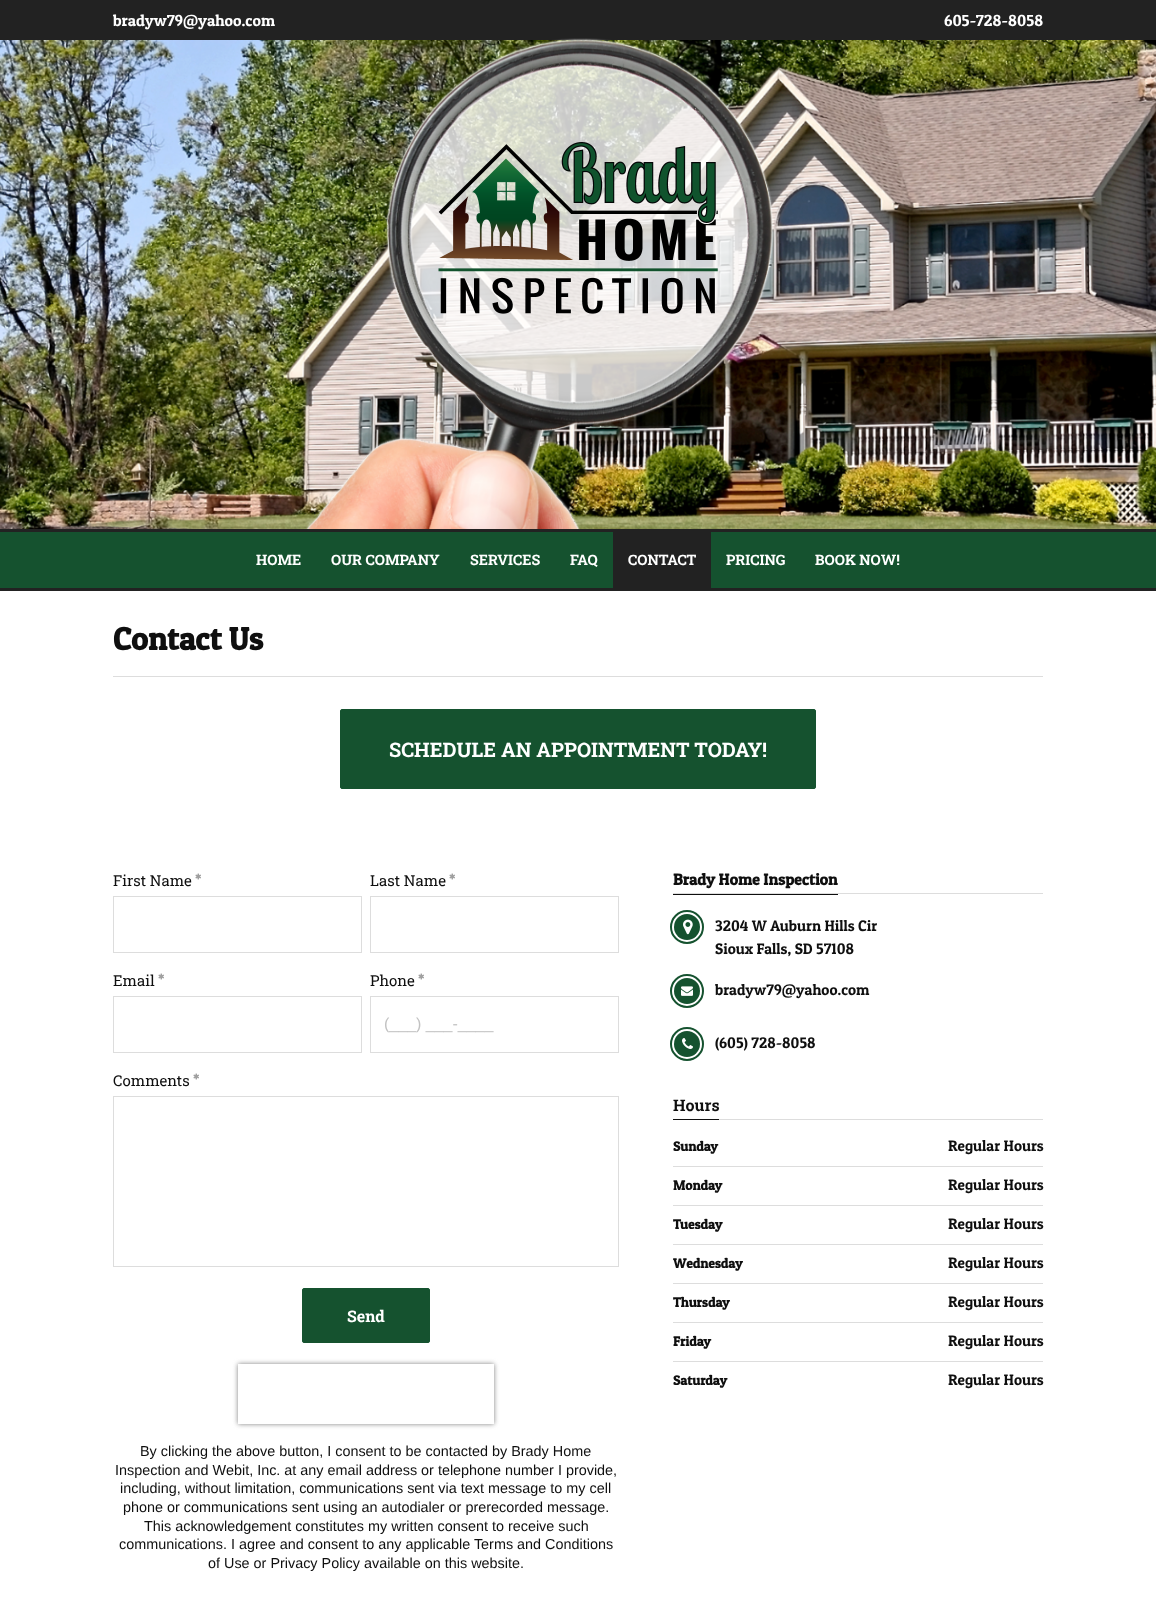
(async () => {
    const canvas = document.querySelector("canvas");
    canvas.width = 1156;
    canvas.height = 1615;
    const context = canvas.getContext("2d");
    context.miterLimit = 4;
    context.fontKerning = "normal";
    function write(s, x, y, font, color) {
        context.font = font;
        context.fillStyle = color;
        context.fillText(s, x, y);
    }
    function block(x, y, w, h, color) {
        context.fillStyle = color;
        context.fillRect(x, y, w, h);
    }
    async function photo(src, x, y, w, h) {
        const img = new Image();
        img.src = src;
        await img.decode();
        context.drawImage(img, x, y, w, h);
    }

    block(0, 0, 1156, 1615, "rgb(255, 255, 255)");
    block(0, 0, 1156, 40, "rgb(34, 34, 34)");
    write("bradyw79@yahoo.com", 113, 26, "16px Patua One", "rgb(255, 255, 255)");
    write("605-728-8058", 944, 26, "16px Patua One", "rgb(255, 255, 255)");
    await photo("media/1.png", 0, 40, 1156, 489);
    await photo("media/2.png", 306, 38, 468, 491);
    await photo("media/3.png", 438, 142, 280, 172);
    block(0, 532, 1156, 56, "rgb(21, 82, 47)");
    block(0, 529, 1156, 3, "rgb(34, 34, 34)");
    block(0, 588, 1156, 3, "rgb(34, 34, 34)");
    write("HOME", 256, 565, "bold 14.4px Roboto Slab", "rgb(255, 255, 255)");
    write("OUR COMPANY", 331, 565, "bold 14.4px Roboto Slab", "rgb(255, 255, 255)");
    write("SERVICES", 470, 565, "bold 14.4px Roboto Slab", "rgb(255, 255, 255)");
    write("FAQ", 570, 565, "bold 14.4px Roboto Slab", "rgb(255, 255, 255)");
    block(613, 532, 98, 56, "rgb(34, 34, 34)");
    write("CONTACT", 628, 565, "bold 14.4px Roboto Slab", "rgb(255, 255, 255)");
    write("PRICING", 726, 565, "bold 14.4px Roboto Slab", "rgb(255, 255, 255)");
    write("BOOK NOW!", 815, 565, "bold 14.4px Roboto Slab", "rgb(255, 255, 255)");
    write("Contact Us", 113, 650, "bold 32px Patua One", "rgb(15, 15, 15)");
    block(113, 676, 930, 1, "rgb(221, 221, 221)");
    context.fillStyle = "rgb(21, 82, 47)";
    context.beginPath();
    context.roundRect(340.5, 709.5, 475, 79, 1.5);
    context.fill();
    context.strokeStyle = "rgb(21, 82, 47)";
    context.stroke();
    write("SCHEDULE AN APPOINTMENT TODAY!", 389, 757, "bold 20px Roboto Slab", "rgb(255, 255, 255)");
    write("First Name", 113, 886, "15px Roboto Slab", "rgb(15, 15, 15)");
    await photo("media/4.png", 195, 873, 6, 7);
    context.strokeStyle = "rgb(221, 221, 221)";
    context.strokeRect(113.5, 896.5, 248, 56);
    write("Last Name", 370, 886, "15px Roboto Slab", "rgb(15, 15, 15)");
    await photo("media/4.png", 449, 873, 6, 7);
    context.strokeRect(370.5, 896.5, 248, 56);
    write("Email", 113, 986, "15px Roboto Slab", "rgb(15, 15, 15)");
    await photo("media/4.png", 158, 973, 6, 7);
    context.strokeRect(113.5, 996.5, 248, 56);
    write("Phone", 370, 986, "15px Roboto Slab", "rgb(15, 15, 15)");
    await photo("media/4.png", 418, 973, 6, 7);
    context.strokeRect(370.5, 996.5, 248, 56);
    write("(___) ___-____", 384, 1029, "16px Liberation Sans", "rgb(194, 194, 194)");
    write("Comments", 113, 1086, "15px Roboto Slab", "rgb(15, 15, 15)");
    await photo("media/4.png", 193, 1073, 6, 7);
    context.strokeRect(113.5, 1096.5, 505, 170);
    context.fillStyle = "rgb(21, 82, 47)";
    context.beginPath();
    context.roundRect(302.5, 1288.5, 127, 54, 1.5);
    context.fill();
    context.strokeStyle = "rgb(21, 82, 47)";
    context.stroke();
    write("Send", 347, 1322, "bold 16px Roboto Slab", "rgb(255, 255, 255)");
    context.save();
    context.beginPath();
    context.moveTo(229, 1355);
    context.lineTo(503, 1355);
    context.lineTo(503, 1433);
    context.lineTo(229, 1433);
    context.closePath();
    context.moveTo(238, 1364);
    context.lineTo(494, 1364);
    context.lineTo(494, 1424);
    context.lineTo(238, 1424);
    context.closePath();
    context.clip("evenodd");
    context.fillStyle = "rgb(128, 128, 128)";
    context.filter = "blur(2.5px)";
    context.beginPath();
    context.rect(238, 1364, 256, 60);
    context.fill();
    context.filter = "none";
    context.restore();
    write("By clicking the above button, I consent to be contacted by Brady Home", 140, 1456, "14.4px Liberation Sans", "rgb(15, 15, 15)");
    write("Inspection and Webit, Inc. at any email address or telephone number I provide,", 115, 1475, "14.4px Liberation Sans", "rgb(15, 15, 15)");
    write("including, without limitation, communications sent via text message to my cell", 120, 1493, "14.4px Liberation Sans", "rgb(15, 15, 15)");
    write("phone or communications sent using an autodialer or prerecorded message.", 123, 1512, "14.4px Liberation Sans", "rgb(15, 15, 15)");
    write("This acknowledgement constitutes my written consent to receive such", 144, 1531, "14.4px Liberation Sans", "rgb(15, 15, 15)");
    write("communications. I agree and consent to any applicable Terms and Conditions", 119, 1549, "14.4px Liberation Sans", "rgb(15, 15, 15)");
    write("of Use or Privacy Policy available on this website.", 208, 1568, "14.4px Liberation Sans", "rgb(15, 15, 15)");
    block(673, 893, 370, 1, "rgb(221, 221, 221)");
    block(673, 894, 165, 1, "rgb(15, 15, 15)");
    write("Brady Home Inspection", 673, 885, "bold 16px Patua One", "rgb(15, 15, 15)");
    context.fillStyle = "rgb(21, 82, 47)";
    context.beginPath();
    context.arc(687, 927, 13, 0, Math.PI * 2);
    context.fill();
    await photo("media/5.png", 683, 919, 10, 16);
    context.beginPath();
    context.arc(687, 927, 16, 0, Math.PI * 2);
    context.lineWidth = 2;
    context.stroke();
    write("3204 W Auburn Hills Cir", 715, 931, "15.25px Patua One", "rgb(15, 15, 15)");
    write("Sioux Falls, SD 57108", 715, 954, "15.25px Patua One", "rgb(15, 15, 15)");
    context.fillStyle = "rgb(21, 82, 47)";
    context.beginPath();
    context.arc(687, 991, 13, 0, Math.PI * 2);
    context.fill();
    await photo("media/6.png", 681, 986, 12, 10);
    context.beginPath();
    context.arc(687, 991, 16, 0, Math.PI * 2);
    context.stroke();
    write("bradyw79@yahoo.com", 715, 995, "15.25px Patua One", "rgb(15, 15, 15)");
    context.fillStyle = "rgb(21, 82, 47)";
    context.beginPath();
    context.arc(687, 1044, 13, 0, Math.PI * 2);
    context.fill();
    await photo("media/7.png", 682, 1038, 11, 11);
    context.beginPath();
    context.arc(687, 1044, 16, 0, Math.PI * 2);
    context.stroke();
    write("(605) 728-8058", 715, 1048, "15.25px Patua One", "rgb(15, 15, 15)");
    block(719, 1119, 324, 1, "rgb(221, 221, 221)");
    block(673, 1119, 46, 1, "rgb(15, 15, 15)");
    write("Hours", 673, 1111, "bold 16px Roboto Slab", "rgb(15, 15, 15)");
    write("Sunday", 673, 1151, "bold 13.5px Patua One", "rgb(15, 15, 15)");
    write("Regular Hours", 948, 1151, "15.25px Patua One", "rgb(15, 15, 15)");
    block(673, 1166, 370, 1, "rgb(221, 221, 221)");
    write("Monday", 673, 1190, "bold 13.5px Patua One", "rgb(15, 15, 15)");
    write("Regular Hours", 948, 1190, "15.25px Patua One", "rgb(15, 15, 15)");
    block(673, 1205, 370, 1, "rgb(221, 221, 221)");
    write("Tuesday", 673, 1229, "bold 13.5px Patua One", "rgb(15, 15, 15)");
    write("Regular Hours", 948, 1229, "15.25px Patua One", "rgb(15, 15, 15)");
    block(673, 1244, 370, 1, "rgb(221, 221, 221)");
    write("Wednesday", 673, 1268, "bold 13.5px Patua One", "rgb(15, 15, 15)");
    write("Regular Hours", 948, 1268, "15.25px Patua One", "rgb(15, 15, 15)");
    block(673, 1283, 370, 1, "rgb(221, 221, 221)");
    write("Thursday", 673, 1307, "bold 13.5px Patua One", "rgb(15, 15, 15)");
    write("Regular Hours", 948, 1307, "15.25px Patua One", "rgb(15, 15, 15)");
    block(673, 1322, 370, 1, "rgb(221, 221, 221)");
    write("Friday", 673, 1346, "bold 13.5px Patua One", "rgb(15, 15, 15)");
    write("Regular Hours", 948, 1346, "15.25px Patua One", "rgb(15, 15, 15)");
    block(673, 1361, 370, 1, "rgb(221, 221, 221)");
    write("Saturday", 673, 1385, "bold 13.5px Patua One", "rgb(15, 15, 15)");
    write("Regular Hours", 948, 1385, "15.25px Patua One", "rgb(15, 15, 15)");
})();
